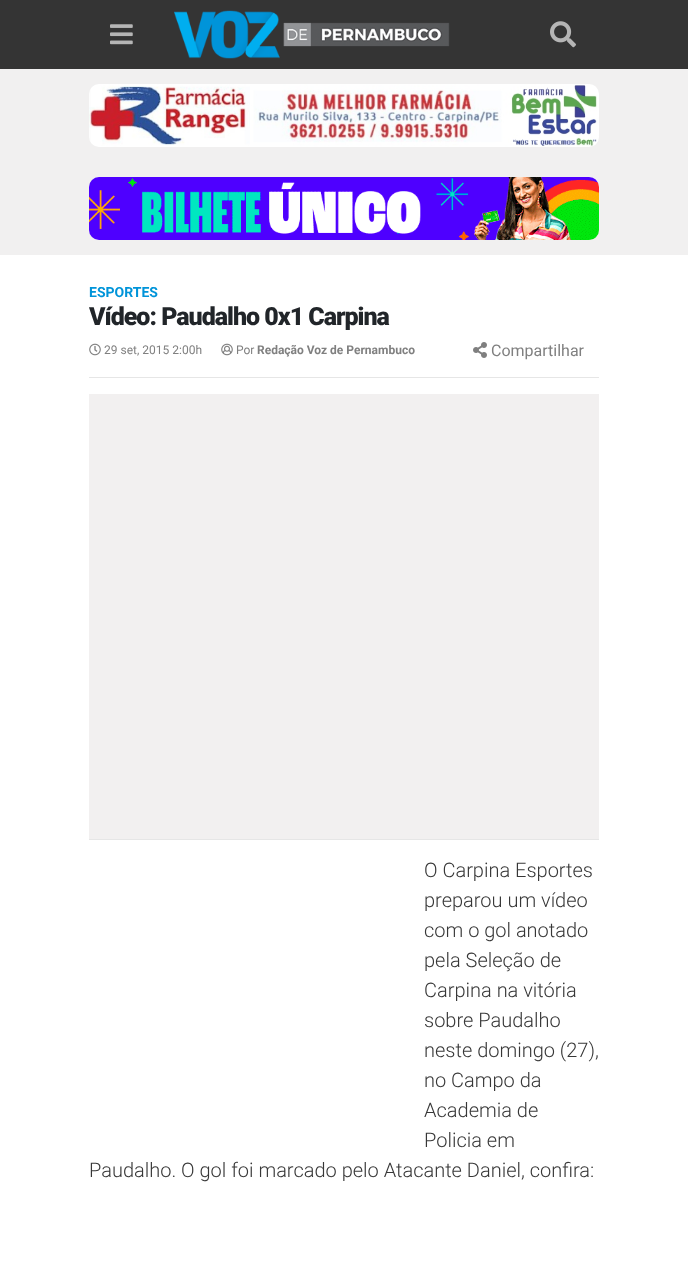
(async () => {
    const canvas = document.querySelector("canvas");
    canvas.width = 688;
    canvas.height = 1286;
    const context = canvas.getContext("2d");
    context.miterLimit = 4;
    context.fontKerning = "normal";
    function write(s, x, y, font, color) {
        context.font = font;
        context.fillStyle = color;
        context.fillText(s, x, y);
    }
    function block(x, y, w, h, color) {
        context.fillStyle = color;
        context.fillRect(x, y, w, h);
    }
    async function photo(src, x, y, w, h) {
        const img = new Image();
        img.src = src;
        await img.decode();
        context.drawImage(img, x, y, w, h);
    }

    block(0, 0, 688, 1286, "rgb(255, 255, 255)");
    block(0, 0, 688, 69, "rgb(52, 52, 52)");
    await photo("media/1.png", 110, 24, 23, 21);
    await photo("media/2.png", 174, 10, 276, 49);
    await photo("media/3.png", 550, 21, 26, 27);
    block(0, 69, 688, 186, "rgb(241, 240, 240)");
    await photo("media/4.png", 89, 84, 510, 63);
    await photo("media/5.png", 89, 177, 510, 63);
    write("ESPORTES", 89, 297, "bold 14px Roboto", "rgb(0, 148, 217)");
    context.letterSpacing = "-1px";
    write("Vídeo: Paudalho 0x1 Carpina", 89, 325, "900 25px Roboto", "rgb(33, 37, 41)");
    await photo("media/6.png", 89, 343, 12, 13);
    context.letterSpacing = "0px";
    write("29 set, 2015 2:00h", 104, 354, "12px Roboto", "rgb(128, 128, 128)");
    await photo("media/7.png", 221, 343, 12, 13);
    write("Por", 236, 354, "12px Roboto", "rgb(128, 128, 128)");
    write("Redação Voz de Pernambuco", 257, 354, "bold 12px Roboto", "rgb(128, 128, 128)");
    await photo("media/8.png", 473, 342, 14, 16);
    write("Compartilhar", 491, 356, "16px Roboto", "rgb(128, 128, 128)");
    block(89, 377, 510, 1, "rgb(230, 230, 230)");
    block(89, 394, 510, 445, "rgb(242, 240, 240)");
    block(89, 839, 510, 1, "rgb(230, 230, 230)");
    write("O Carpina Esportes", 424, 877, "300 20px Roboto", "rgb(55, 55, 55)");
    write("preparou um vídeo", 424, 907, "300 20px Roboto", "rgb(55, 55, 55)");
    write("com o gol anotado", 424, 937, "300 20px Roboto", "rgb(55, 55, 55)");
    write("pela Seleção de", 424, 967, "300 20px Roboto", "rgb(55, 55, 55)");
    write("Carpina na vitória", 424, 997, "300 20px Roboto", "rgb(55, 55, 55)");
    write("sobre Paudalho", 424, 1027, "300 20px Roboto", "rgb(55, 55, 55)");
    write("neste domingo (27),", 424, 1057, "300 20px Roboto", "rgb(55, 55, 55)");
    write("no Campo da", 424, 1087, "300 20px Roboto", "rgb(55, 55, 55)");
    write("Academia de", 424, 1117, "300 20px Roboto", "rgb(55, 55, 55)");
    write("Policia em", 424, 1147, "300 20px Roboto", "rgb(55, 55, 55)");
    write("Paudalho. O gol foi marcado pelo Atacante Daniel, confira:", 89, 1177, "300 20px Roboto", "rgb(55, 55, 55)");
})();
